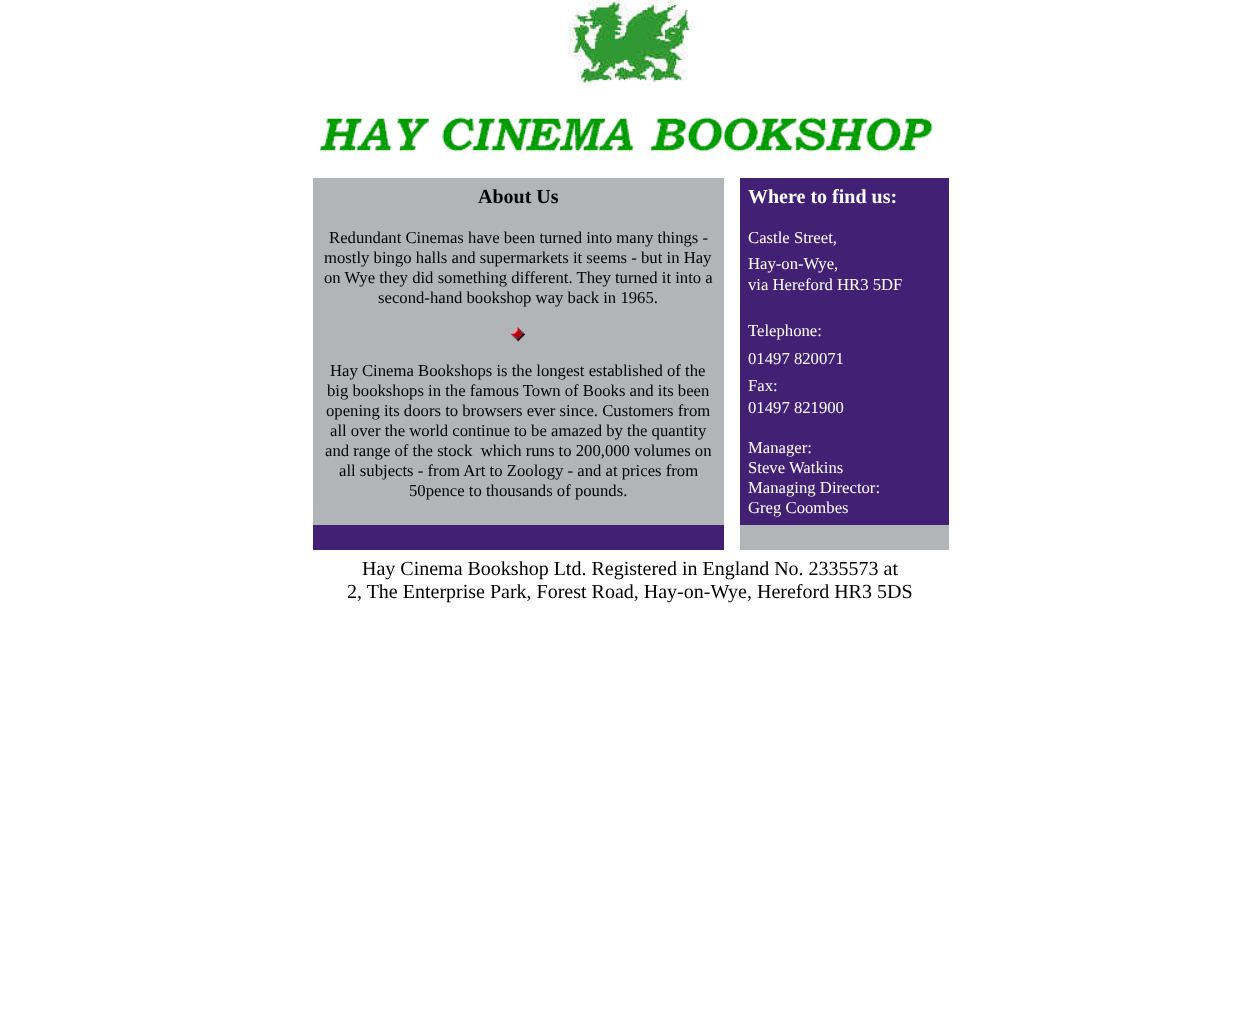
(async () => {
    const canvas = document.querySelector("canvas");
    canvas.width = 1260;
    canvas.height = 1023;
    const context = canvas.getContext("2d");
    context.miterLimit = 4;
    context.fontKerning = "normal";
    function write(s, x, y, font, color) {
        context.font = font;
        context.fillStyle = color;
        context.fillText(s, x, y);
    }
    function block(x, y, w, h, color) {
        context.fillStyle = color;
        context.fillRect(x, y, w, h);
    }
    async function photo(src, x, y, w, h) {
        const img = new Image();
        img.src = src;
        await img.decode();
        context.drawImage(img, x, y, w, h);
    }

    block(0, 0, 1260, 1023, "rgb(255, 255, 255)");
    await photo("media/1.png", 567, 0, 126, 86);
    await photo("media/2.png", 320, 117, 613, 35);
    block(313, 178, 411, 347, "rgb(177, 181, 183)");
    write("About Us", 478, 203, "bold 20px Liberation Serif", "rgb(0, 0, 0)");
    write("Redundant Cinemas have been turned into many things -", 329, 243, "16.7px Liberation Serif", "rgb(0, 0, 0)");
    write("mostly bingo halls and supermarkets it seems - but in Hay", 324, 263, "16.7px Liberation Serif", "rgb(0, 0, 0)");
    write("on Wye they did something different. They turned it into a", 324, 283, "16.7px Liberation Serif", "rgb(0, 0, 0)");
    write("second-hand bookshop way back in 1965.", 378, 303, "16.7px Liberation Serif", "rgb(0, 0, 0)");
    await photo("media/3.png", 511, 327, 14, 15);
    write("Hay Cinema Bookshops is the longest established of the", 330, 376, "16.7px Liberation Serif", "rgb(0, 0, 0)");
    write("big bookshops in the famous Town of Books and its been", 327, 396, "16.7px Liberation Serif", "rgb(0, 0, 0)");
    write("opening its doors to browsers ever since. Customers from", 326, 416, "16.7px Liberation Serif", "rgb(0, 0, 0)");
    write("all over the world continue to be amazed by the quantity", 330, 436, "16.7px Liberation Serif", "rgb(0, 0, 0)");
    write("and range of the stock  which runs to 200,000 volumes on", 325, 456, "16.7px Liberation Serif", "rgb(0, 0, 0)");
    write("all subjects - from Art to Zoology - and at prices from", 339, 476, "16.7px Liberation Serif", "rgb(0, 0, 0)");
    write("50pence to thousands of pounds.", 409, 496, "16.7px Liberation Serif", "rgb(0, 0, 0)");
    block(740, 178, 209, 347, "rgb(66, 32, 116)");
    write("Where to find us:", 748, 203, "bold 20px Liberation Serif", "rgb(255, 255, 255)");
    write("Castle Street,", 748, 243, "16.7px Liberation Serif", "rgb(255, 255, 255)");
    write("Hay-on-Wye,", 748, 269, "16.7px Liberation Serif", "rgb(255, 255, 255)");
    write("via Hereford HR3 5DF", 748, 290, "16.7px Liberation Serif", "rgb(255, 255, 255)");
    write("Telephone:", 748, 336, "16.7px Liberation Serif", "rgb(255, 255, 255)");
    write("01497 820071", 748, 364, "16.7px Liberation Serif", "rgb(255, 255, 255)");
    write("Fax:", 748, 391, "16.7px Liberation Serif", "rgb(255, 255, 255)");
    write("01497 821900", 748, 413, "16.7px Liberation Serif", "rgb(255, 255, 255)");
    write("Manager:", 748, 453, "16.7px Liberation Serif", "rgb(255, 255, 255)");
    write("Steve Watkins", 748, 473, "16.7px Liberation Serif", "rgb(255, 255, 255)");
    write("Managing Director:", 748, 493, "16.7px Liberation Serif", "rgb(255, 255, 255)");
    write("Greg Coombes", 748, 513, "16.7px Liberation Serif", "rgb(255, 255, 255)");
    block(313, 525, 411, 25, "rgb(66, 32, 116)");
    block(740, 525, 209, 25, "rgb(177, 181, 183)");
    write("Hay Cinema Bookshop Ltd. Registered in England No. 2335573 at", 362, 575, "20px Liberation Serif", "rgb(0, 0, 0)");
    write("2, The Enterprise Park, Forest Road, Hay-on-Wye, Hereford HR3 5DS", 347, 598, "20px Liberation Serif", "rgb(0, 0, 0)");
})();
